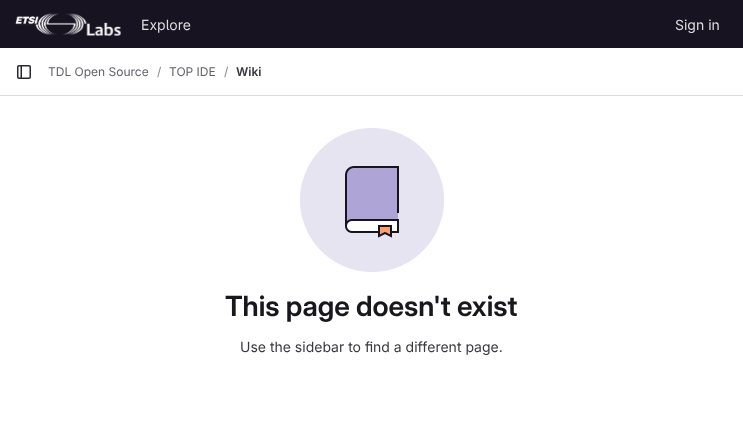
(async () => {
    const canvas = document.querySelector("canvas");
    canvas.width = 743;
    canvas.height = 426;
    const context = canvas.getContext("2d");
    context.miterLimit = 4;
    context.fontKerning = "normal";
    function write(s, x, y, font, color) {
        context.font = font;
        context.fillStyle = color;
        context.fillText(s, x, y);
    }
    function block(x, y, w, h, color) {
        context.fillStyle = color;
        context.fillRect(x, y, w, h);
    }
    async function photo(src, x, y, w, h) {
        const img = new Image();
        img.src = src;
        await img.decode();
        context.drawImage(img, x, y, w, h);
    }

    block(0, 0, 743, 426, "rgb(255, 255, 255)");
    block(0, 0, 743, 48, "rgb(23, 19, 33)");
    await photo("media/1.png", 15, 13, 106, 23);
    write("Explore", 141, 30, "14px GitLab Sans", "rgb(220, 220, 222)");
    write("Sign in", 675, 30, "14px GitLab Sans", "rgb(220, 220, 222)");
    block(0, 95, 743, 1, "rgb(220, 220, 222)");
    await photo("media/2.png", 17, 65, 14, 14);
    write("TDL Open Source", 48, 76, "12px GitLab Sans", "rgb(98, 97, 104)");
    write("/", 157, 76, "12px GitLab Sans", "rgb(137, 136, 141)");
    write("TOP IDE", 169, 76, "12px GitLab Sans", "rgb(98, 97, 104)");
    write("/", 224, 76, "12px GitLab Sans", "rgb(137, 136, 141)");
    write("Wiki", 236, 76, "600 12px 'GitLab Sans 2'", "rgb(58, 56, 63)");
    await photo("media/3.png", 300, 128, 144, 144);
    write("This page doesn't exist", 225, 316, "600 28px GitLab Sans", "rgb(24, 23, 29)");
    write("Use the sidebar to find a different page.", 240, 352, "14px GitLab Sans", "rgb(58, 56, 63)");
})();
